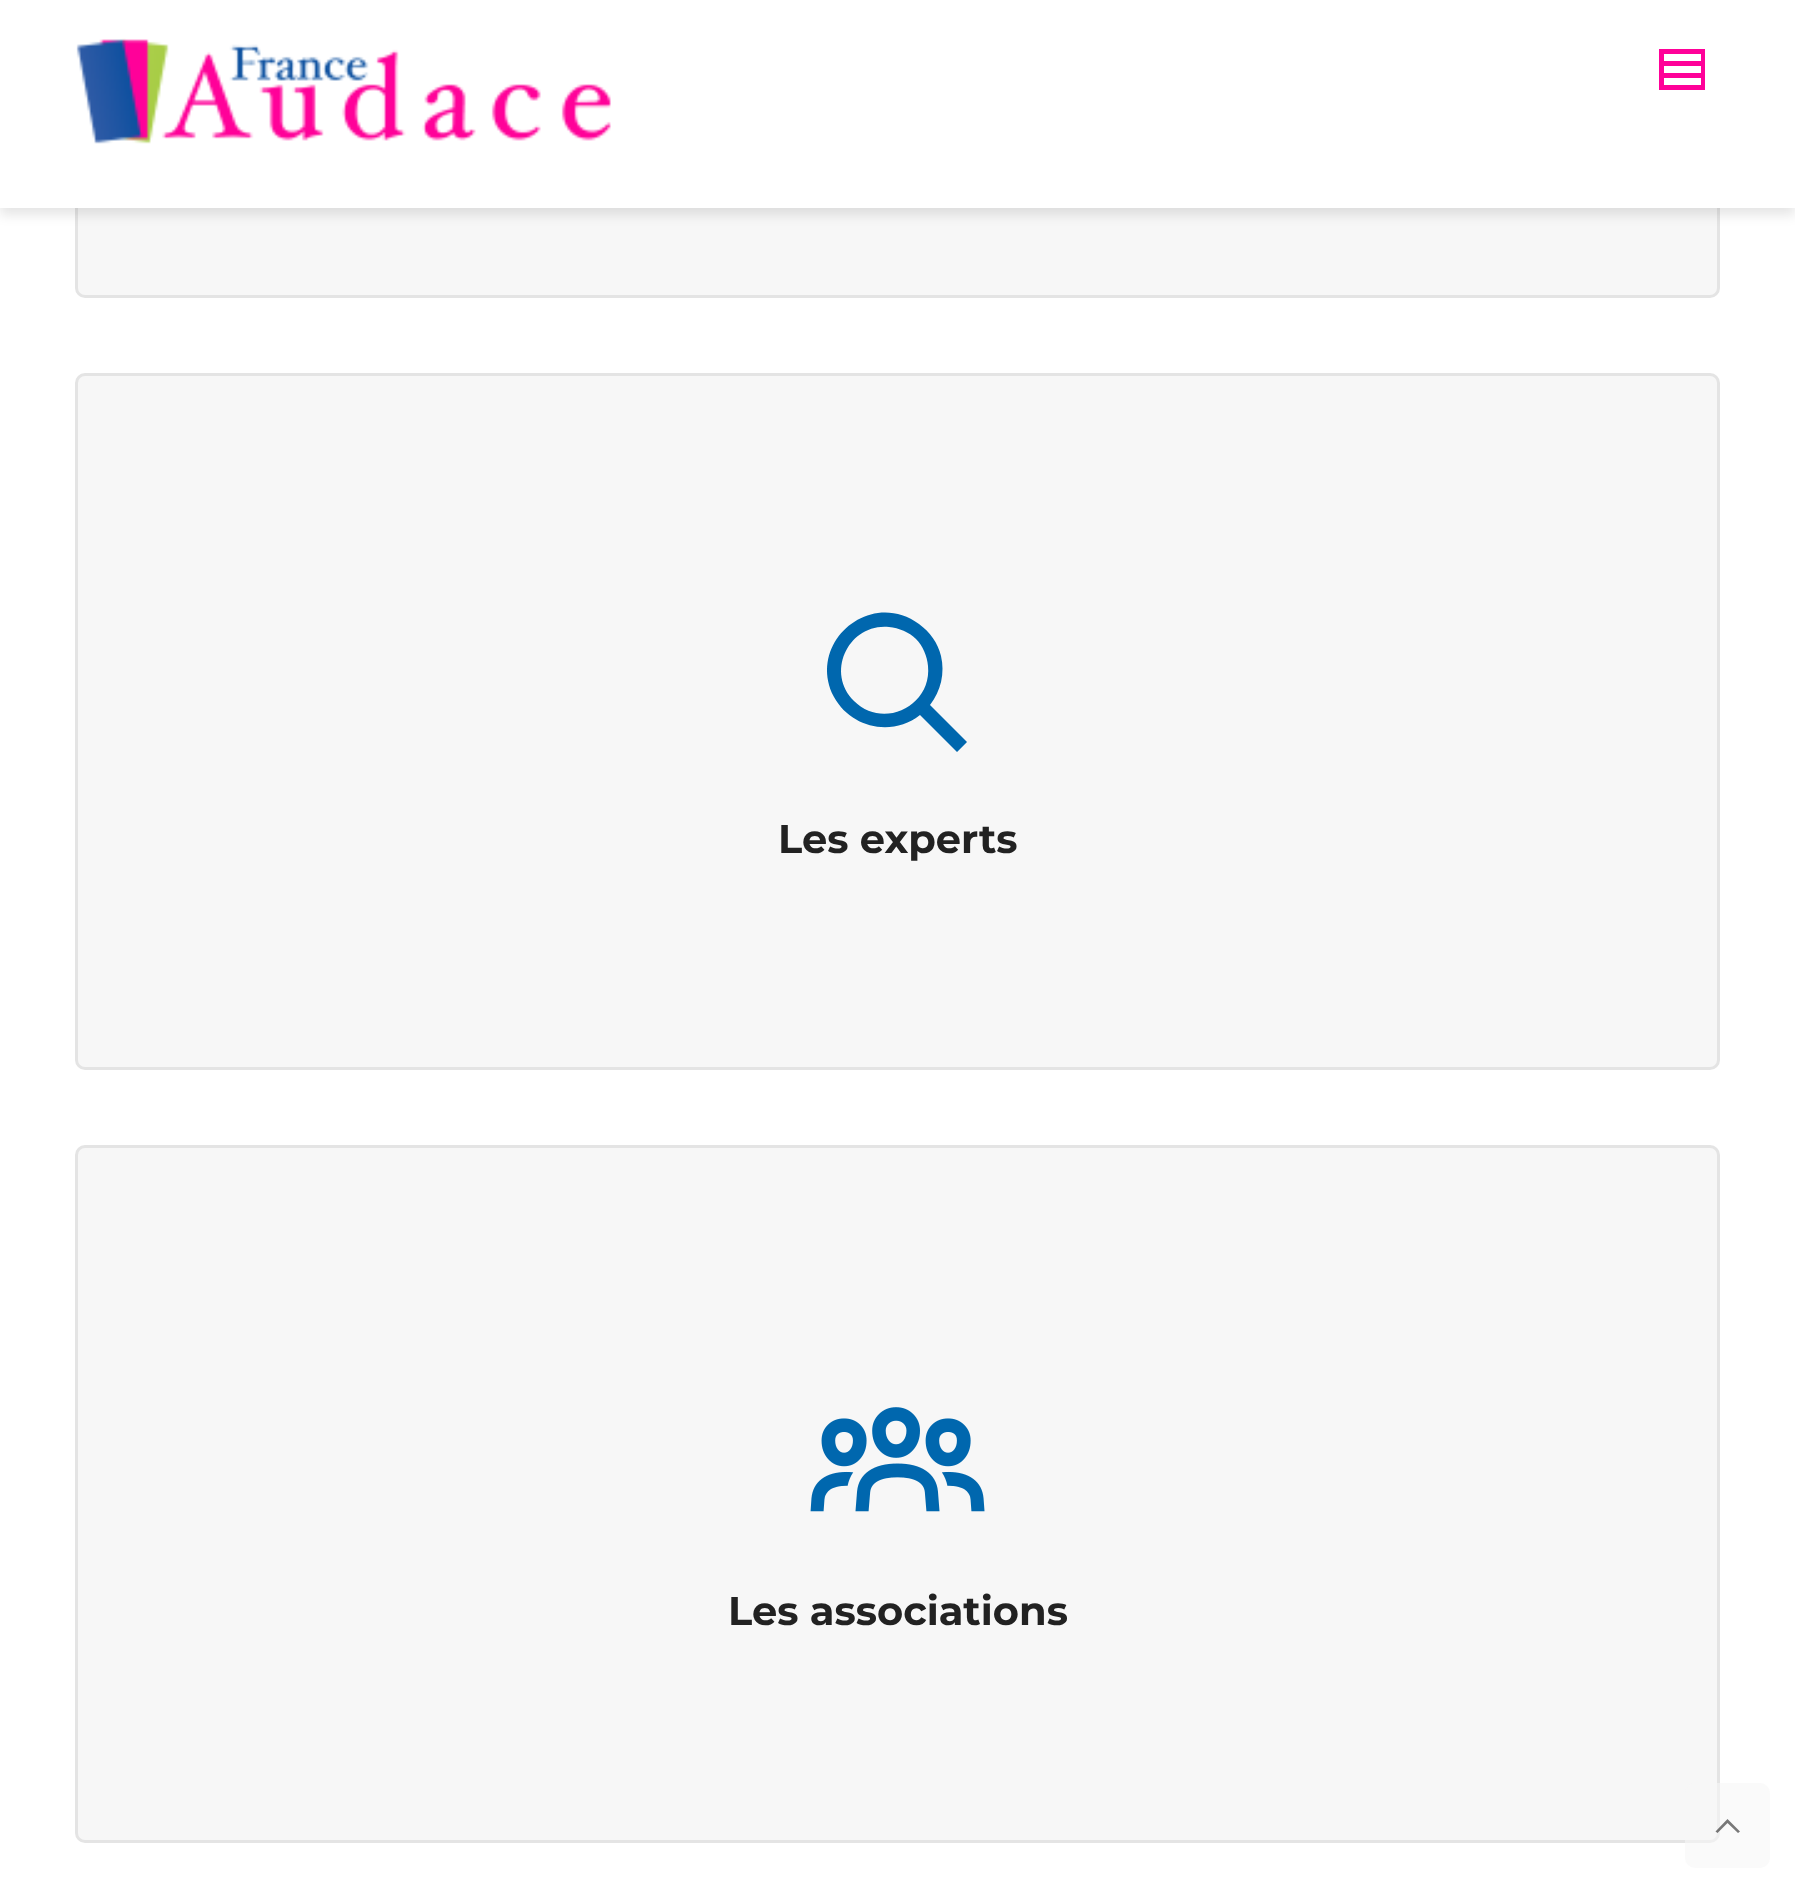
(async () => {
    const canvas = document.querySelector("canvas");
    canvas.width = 1795;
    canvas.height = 1892;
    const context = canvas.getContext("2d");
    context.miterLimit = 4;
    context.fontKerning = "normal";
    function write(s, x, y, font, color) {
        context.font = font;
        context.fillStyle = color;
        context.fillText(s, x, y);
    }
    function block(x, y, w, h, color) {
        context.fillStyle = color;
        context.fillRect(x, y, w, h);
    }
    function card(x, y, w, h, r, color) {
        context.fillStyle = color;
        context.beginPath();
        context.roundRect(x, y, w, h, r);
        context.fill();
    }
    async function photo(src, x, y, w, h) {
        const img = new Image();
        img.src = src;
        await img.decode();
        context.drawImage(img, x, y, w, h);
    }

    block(0, 0, 1795, 1892, "rgb(255, 255, 255)");
    context.fillStyle = "rgb(247, 247, 247)";
    context.beginPath();
    context.roundRect(76.5, -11.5, 1642, 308, 8.5);
    context.fill();
    context.strokeStyle = "rgb(228, 228, 228)";
    context.lineWidth = 3;
    context.stroke();
    context.fillStyle = "rgba(0, 0, 0, 0.1)";
    context.filter = "blur(6px)";
    context.beginPath();
    context.rect(0, 8, 1795, 207);
    context.fill();
    context.filter = "none";
    block(0, 0, 1795, 208, "rgb(255, 255, 255)");
    await photo("media/1.png", 76, 38, 535, 106);
    context.fillStyle = "rgb(255, 1, 153)";
    context.beginPath();
    context.moveTo(1659, 49);
    context.lineTo(1705, 49);
    context.lineTo(1705, 90);
    context.lineTo(1659, 90);
    context.closePath();
    context.moveTo(1701, 54);
    context.lineTo(1664, 54);
    context.lineTo(1664, 61);
    context.lineTo(1701, 61);
    context.closePath();
    context.moveTo(1701, 66);
    context.lineTo(1664, 66);
    context.lineTo(1664, 73);
    context.lineTo(1701, 73);
    context.closePath();
    context.moveTo(1664, 85);
    context.lineTo(1701, 85);
    context.lineTo(1701, 78);
    context.lineTo(1664, 78);
    context.closePath();
    context.fill();
    context.fillStyle = "rgb(247, 247, 247)";
    context.beginPath();
    context.roundRect(76.5, 374.5, 1642, 694, 8.5);
    context.fill();
    context.stroke();
    context.fillStyle = "rgb(0, 103, 174)";
    context.beginPath();
    context.moveTo(967, 742);
    context.lineTo(957, 752);
    context.lineTo(920, 715);
    context.bezierCurveTo(892, 737, 851, 728, 834, 697);
    context.bezierCurveTo(806, 643, 870, 588, 919, 624);
    context.bezierCurveTo(930, 632, 938, 643, 941, 656);
    context.bezierCurveTo(945, 673, 941, 691, 930, 705);
    context.closePath();
    context.moveTo(854, 701);
    context.bezierCurveTo(883, 730, 932, 706, 928, 666);
    context.bezierCurveTo(927, 656, 923, 646, 916, 639);
    context.bezierCurveTo(909, 632, 899, 628, 889, 627);
    context.bezierCurveTo(849, 623, 825, 672, 854, 701);
    context.closePath();
    context.fill();
    write("Les experts", 778, 853, "bold 40px Montserrat", "rgb(34, 34, 34)");
    context.fillStyle = "rgb(247, 247, 247)";
    context.beginPath();
    context.roundRect(76.5, 1146.5, 1642, 695, 8.5);
    context.fill();
    context.stroke();
    await photo("media/2.png", 810, 1407, 175, 105);
    write("Les associations", 728, 1625, "bold 40px Montserrat", "rgb(34, 34, 34)");
    card(1685, 1783, 85, 85, 10, "rgba(247, 247, 247, 0.6)");
    context.fillStyle = "rgba(34, 34, 34, 0.6)";
    context.beginPath();
    context.moveTo(1738, 1833);
    context.lineTo(1727.5, 1823);
    context.lineTo(1717.5, 1833);
    context.lineTo(1715.5, 1831.5);
    context.lineTo(1727.5, 1819);
    context.lineTo(1740, 1831.5);
    context.closePath();
    context.fill();
})();
